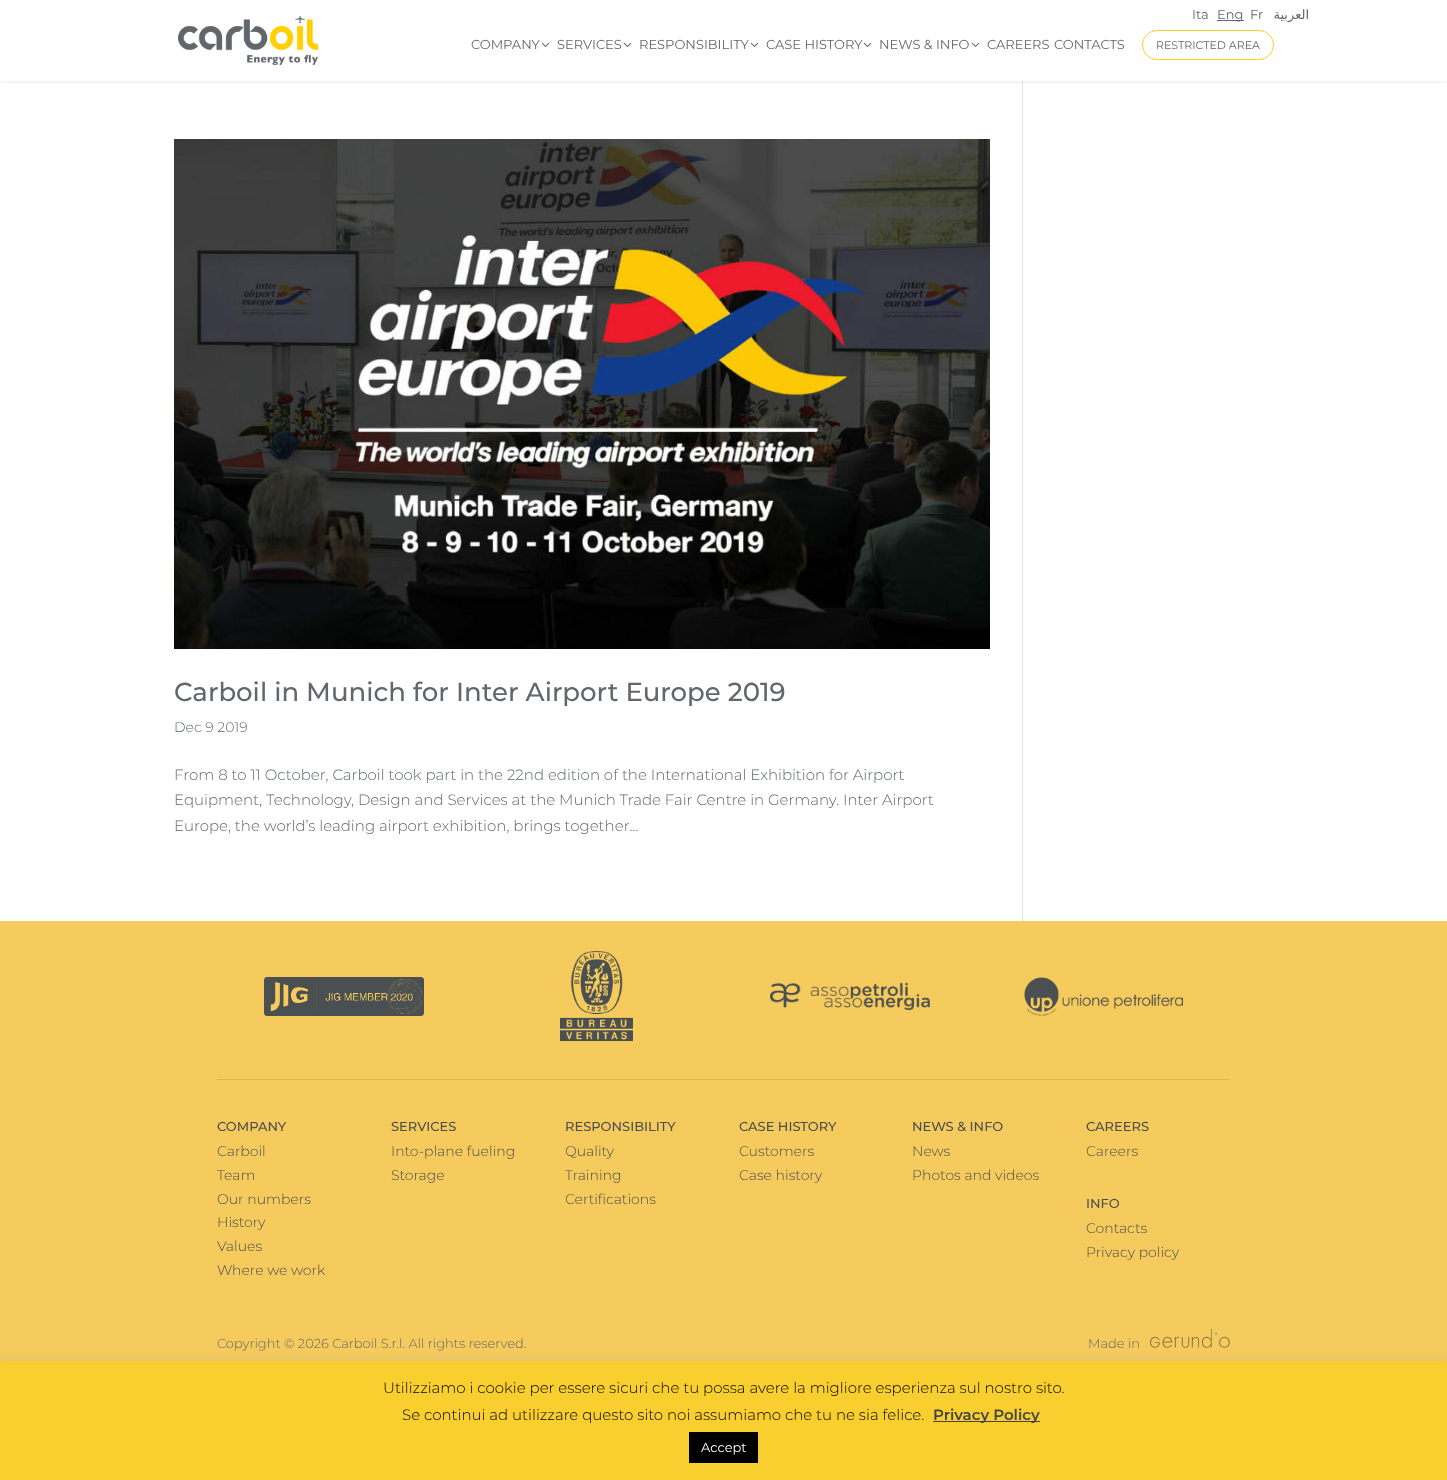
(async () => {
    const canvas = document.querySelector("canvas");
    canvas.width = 1447;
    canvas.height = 1480;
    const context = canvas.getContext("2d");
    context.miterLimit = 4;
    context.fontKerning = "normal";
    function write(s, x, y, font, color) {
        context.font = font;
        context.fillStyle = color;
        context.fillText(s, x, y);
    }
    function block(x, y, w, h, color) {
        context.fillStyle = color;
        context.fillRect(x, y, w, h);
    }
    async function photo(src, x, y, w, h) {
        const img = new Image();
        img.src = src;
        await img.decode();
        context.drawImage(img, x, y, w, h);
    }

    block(0, 0, 1447, 1480, "rgb(255, 255, 255)");
    block(1022, 81, 1, 840, "rgb(226, 226, 226)");
    context.save();
    context.beginPath();
    context.rect(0, 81, 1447, 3);
    context.clip();
    context.fillStyle = "rgba(0, 0, 0, 0.1)";
    context.filter = "blur(3.5px)";
    context.beginPath();
    context.rect(0, 0, 1447, 81);
    context.fill();
    context.filter = "none";
    context.restore();
    await photo("media/1.png", 178, 16, 140, 49);
    write("Ita", 1192, 19, "100 13px 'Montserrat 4'", "rgb(97, 103, 107)");
    block(1217, 20, 27, 1, "rgb(97, 103, 107)");
    write("Eng", 1217, 19, "100 13px 'Montserrat 4'", "rgb(97, 103, 107)");
    write("Fr", 1250, 19, "100 13px 'Montserrat 4'", "rgb(97, 103, 107)");
    context.direction = "rtl";
    write("العربية", 1309, 19, "13px DejaVu Sans", "rgb(97, 103, 107)");
    context.direction = "ltr";
    write("COMPANY", 471, 49, "100 13px 'Montserrat 4'", "rgb(97, 103, 107)");
    await photo("media/2.png", 541, 42, 9, 5);
    write("SERVICES", 557, 49, "100 13px 'Montserrat 4'", "rgb(97, 103, 107)");
    await photo("media/2.png", 623, 42, 9, 5);
    write("RESPONSIBILITY", 639, 49, "100 13px 'Montserrat 4'", "rgb(97, 103, 107)");
    await photo("media/2.png", 750, 42, 9, 5);
    write("CASE HISTORY", 766, 49, "100 13px 'Montserrat 4'", "rgb(97, 103, 107)");
    await photo("media/2.png", 863, 42, 9, 5);
    write("NEWS & INFO", 879, 49, "100 13px 'Montserrat 4'", "rgb(97, 103, 107)");
    await photo("media/2.png", 971, 42, 9, 5);
    write("CAREERS", 987, 49, "100 13px 'Montserrat 4'", "rgb(97, 103, 107)");
    write("CONTACTS", 1054, 49, "100 13px 'Montserrat 4'", "rgb(97, 103, 107)");
    context.beginPath();
    context.roundRect(1142.5, 30.5, 131, 29, 14.5);
    context.strokeStyle = "rgb(249, 207, 48)";
    context.stroke();
    write("RESTRICTED AREA", 1156, 49, "100 11px 'Montserrat 4'", "rgb(97, 103, 107)");
    await photo("media/3.png", 174, 139, 816, 510);
    write("Carboil in Munich for Inter Airport Europe 2019", 174, 701, "100 26px Montserrat", "rgb(97, 103, 107)");
    write("Dec 9 2019", 174, 732, "100 14px 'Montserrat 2'", "rgb(97, 103, 107)");
    write("From 8 to 11 October, Carboil took part in the 22nd edition of the International Exhibition for Airport", 174, 780, "100 15px 'Montserrat 2'", "rgb(97, 103, 107)");
    write("Equipment, Technology, Design and Services at the Munich Trade Fair Centre in Germany. Inter Airport", 174, 805, "100 15px 'Montserrat 2'", "rgb(97, 103, 107)");
    write("Europe, the world’s leading airport exhibition, brings together...", 174, 831, "100 15px 'Montserrat 2'", "rgb(97, 103, 107)");
    block(0, 921, 1447, 440, "rgb(246, 203, 93)");
    block(217, 1079, 1013, 1, "rgb(221, 183, 84)");
    await photo("media/4.png", 264, 977, 160, 39);
    await photo("media/5.png", 560, 951, 73, 90);
    await photo("media/6.png", 770, 983, 160, 27);
    await photo("media/7.png", 1024, 977, 159, 39);
    write("COMPANY", 217, 1131, "100 13px Montserrat", "rgb(75, 79, 81)");
    write("Carboil", 217, 1156, "100 14px 'Montserrat 2'", "rgb(75, 79, 81)");
    write("Team", 217, 1180, "100 14px 'Montserrat 2'", "rgb(75, 79, 81)");
    write("Our numbers", 217, 1204, "100 14px 'Montserrat 2'", "rgb(75, 79, 81)");
    write("History", 217, 1227, "100 14px 'Montserrat 2'", "rgb(75, 79, 81)");
    write("Values", 217, 1251, "100 14px 'Montserrat 2'", "rgb(75, 79, 81)");
    write("Where we work", 217, 1275, "100 14px 'Montserrat 2'", "rgb(75, 79, 81)");
    write("SERVICES", 391, 1131, "100 13px Montserrat", "rgb(75, 79, 81)");
    write("Into-plane fueling", 391, 1156, "100 14px 'Montserrat 2'", "rgb(75, 79, 81)");
    write("Storage", 391, 1180, "100 14px 'Montserrat 2'", "rgb(75, 79, 81)");
    write("RESPONSIBILITY", 565, 1131, "100 13px Montserrat", "rgb(75, 79, 81)");
    write("Quality", 565, 1156, "100 14px 'Montserrat 2'", "rgb(75, 79, 81)");
    write("Training", 565, 1180, "100 14px 'Montserrat 2'", "rgb(75, 79, 81)");
    write("Certifications", 565, 1204, "100 14px 'Montserrat 2'", "rgb(75, 79, 81)");
    write("CASE HISTORY", 739, 1131, "100 13px Montserrat", "rgb(75, 79, 81)");
    write("Customers", 739, 1156, "100 14px 'Montserrat 2'", "rgb(75, 79, 81)");
    write("Case history", 739, 1180, "100 14px 'Montserrat 2'", "rgb(75, 79, 81)");
    write("NEWS & INFO", 912, 1131, "100 13px Montserrat", "rgb(75, 79, 81)");
    write("News", 912, 1156, "100 14px 'Montserrat 2'", "rgb(75, 79, 81)");
    write("Photos and videos", 912, 1180, "100 14px 'Montserrat 2'", "rgb(75, 79, 81)");
    write("CAREERS", 1086, 1131, "100 13px Montserrat", "rgb(75, 79, 81)");
    write("Careers", 1086, 1156, "100 14px 'Montserrat 2'", "rgb(75, 79, 81)");
    write("INFO", 1086, 1208, "100 13px Montserrat", "rgb(75, 79, 81)");
    write("Contacts", 1086, 1233, "100 14px 'Montserrat 2'", "rgb(75, 79, 81)");
    write("Privacy policy", 1086, 1257, "100 14px 'Montserrat 2'", "rgb(75, 79, 81)");
    write("Copyright © 2026 Carboil S.r.l. All rights reserved.", 217, 1348, "100 13px 'Montserrat 2'", "rgb(97, 103, 107)");
    write("Made in", 1088, 1348, "100 13px 'Montserrat 2'", "rgb(97, 103, 107)");
    await photo("media/8.png", 1150, 1329, 80, 19);
    context.fillStyle = "rgba(172, 171, 171, 0.3)";
    context.filter = "blur(5px)";
    context.beginPath();
    context.rect(0, 1360, 1447, 119);
    context.fill();
    context.filter = "none";
    block(0, 1361, 1447, 119, "rgb(249, 207, 48)");
    write("Utilizziamo i cookie per essere sicuri che tu possa avere la migliore esperienza sul nostro sito.", 383, 1393, "100 15px 'Montserrat 2'", "rgb(0, 0, 0)");
    write("Se continui ad utilizzare questo sito noi assumiamo che tu ne sia felice.", 402, 1420, "100 15px 'Montserrat 2'", "rgb(0, 0, 0)");
    block(933, 1421, 107, 1, "rgb(68, 68, 68)");
    write("Privacy Policy", 933, 1420, "100 15px 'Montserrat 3'", "rgb(68, 68, 68)");
    block(689, 1432, 69, 31, "rgb(0, 0, 0)");
    write("Accept", 701, 1452, "100 13px 'Montserrat 4'", "rgb(255, 255, 255)");
})();
